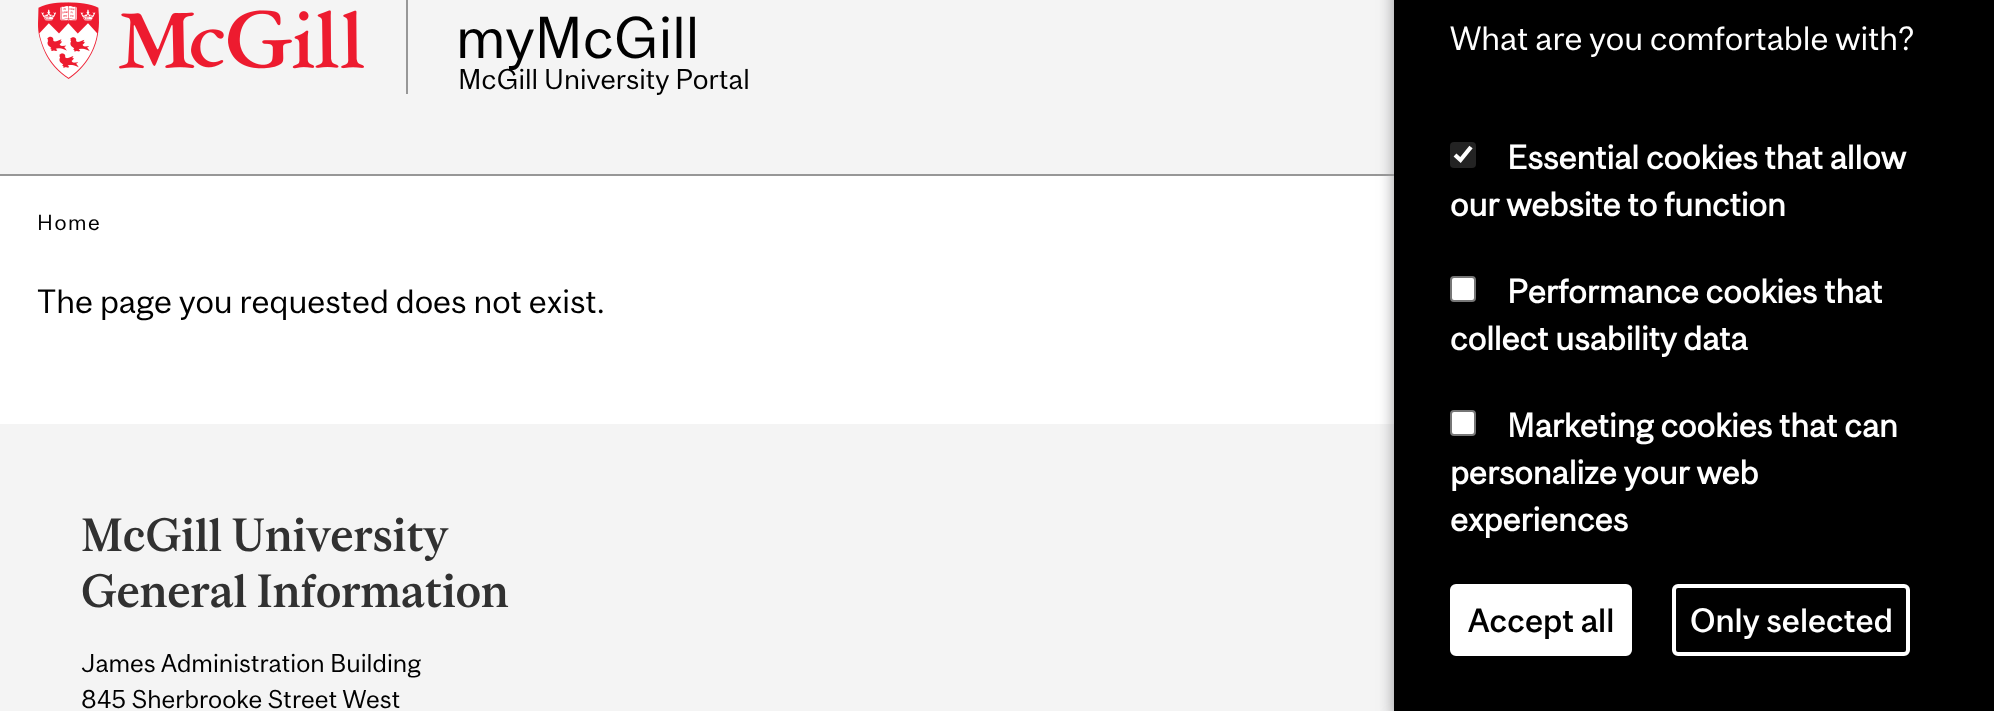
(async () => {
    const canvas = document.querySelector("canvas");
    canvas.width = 1994;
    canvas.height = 711;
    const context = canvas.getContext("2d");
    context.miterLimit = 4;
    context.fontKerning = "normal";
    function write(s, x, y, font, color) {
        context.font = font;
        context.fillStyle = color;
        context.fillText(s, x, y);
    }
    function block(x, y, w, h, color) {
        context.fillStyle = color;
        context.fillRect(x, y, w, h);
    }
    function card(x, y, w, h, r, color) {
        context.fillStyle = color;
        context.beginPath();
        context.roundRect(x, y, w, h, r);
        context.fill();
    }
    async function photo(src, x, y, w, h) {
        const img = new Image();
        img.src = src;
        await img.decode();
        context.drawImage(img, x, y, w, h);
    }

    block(0, 0, 1994, 711, "rgb(255, 255, 255)");
    context.letterSpacing = "1.5px";
    write("Home", 37, 230, "20.5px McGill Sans", "rgb(0, 0, 0)");
    context.letterSpacing = "0px";
    write("The page you requested does not exist.", 37, 313, "31.4px McGill Sans", "rgb(0, 0, 0)");
    block(0, 0, 1394, 174, "rgb(244, 244, 244)");
    block(0, 174, 1394, 2, "rgb(151, 151, 151)");
    await photo("media/1.png", 38, 2, 326, 77);
    block(406, 0, 2, 94, "rgb(151, 151, 151)");
    write("myMcGill", 456, 58, "55px McGill Sans", "rgb(0, 0, 0)");
    write("McGill University Portal", 458, 89, "26.75px McGill Sans", "rgb(0, 0, 0)");
    block(0, 424, 1394, 287, "rgb(244, 244, 244)");
    context.fillStyle = "rgb(151, 151, 153)";
    context.filter = "blur(8px)";
    context.beginPath();
    context.rect(1394, -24, 600, 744);
    context.fill();
    context.filter = "none";
    block(1394, 0, 600, 711, "rgb(0, 0, 0)");
    write("What are you comfortable with?", 1450, 50, "31.4px McGill Sans", "rgb(255, 255, 255)");
    card(1450, 142, 26, 26, 4, "rgb(35, 35, 35)");
    context.beginPath();
    context.moveTo(1455, 155);
    context.lineTo(1460.5, 160);
    context.lineTo(1471, 147);
    context.strokeStyle = "rgb(255, 255, 255)";
    context.lineWidth = 4.2;
    context.stroke();
    write("Essential cookies that allow", 1507, 169, "bold 31.4px McGill Sans", "rgb(255, 255, 255)");
    write("our website to function", 1450, 216, "bold 31.4px McGill Sans", "rgb(255, 255, 255)");
    context.beginPath();
    context.roundRect(1451, 277, 24, 24, 3);
    context.fill();
    context.strokeStyle = "rgb(118, 118, 118)";
    context.lineWidth = 2;
    context.stroke();
    write("Performance cookies that", 1507, 303, "bold 31.4px McGill Sans", "rgb(255, 255, 255)");
    write("collect usability data", 1450, 350, "bold 31.4px McGill Sans", "rgb(255, 255, 255)");
    context.beginPath();
    context.roundRect(1451, 411, 24, 24, 3);
    context.fill();
    context.stroke();
    write("Marketing cookies that can", 1507, 437, "bold 31.4px McGill Sans", "rgb(255, 255, 255)");
    write("personalize your web", 1450, 484, "bold 31.4px McGill Sans", "rgb(255, 255, 255)");
    write("experiences", 1450, 531, "bold 31.4px McGill Sans", "rgb(255, 255, 255)");
    context.beginPath();
    context.roundRect(1452, 586, 178, 68, 4);
    context.fill();
    context.strokeStyle = "rgb(255, 255, 255)";
    context.lineWidth = 4;
    context.stroke();
    write("Accept all", 1468, 632, "500 31.4px McGill Sans", "rgb(0, 0, 0)");
    context.beginPath();
    context.roundRect(1674, 586, 234, 68, 4);
    context.stroke();
    write("Only selected", 1690, 632, "500 31.4px McGill Sans", "rgb(255, 255, 255)");
    write("McGill University", 81, 551, "500 43.5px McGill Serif", "rgb(49, 49, 49)");
    write("General Information", 81, 607, "500 43.5px McGill Serif", "rgb(49, 49, 49)");
    write("James Administration Building", 81, 672, "24px McGill Sans", "rgb(0, 0, 0)");
    write("845 Sherbrooke Street West", 81, 708, "24px McGill Sans", "rgb(0, 0, 0)");
})();
